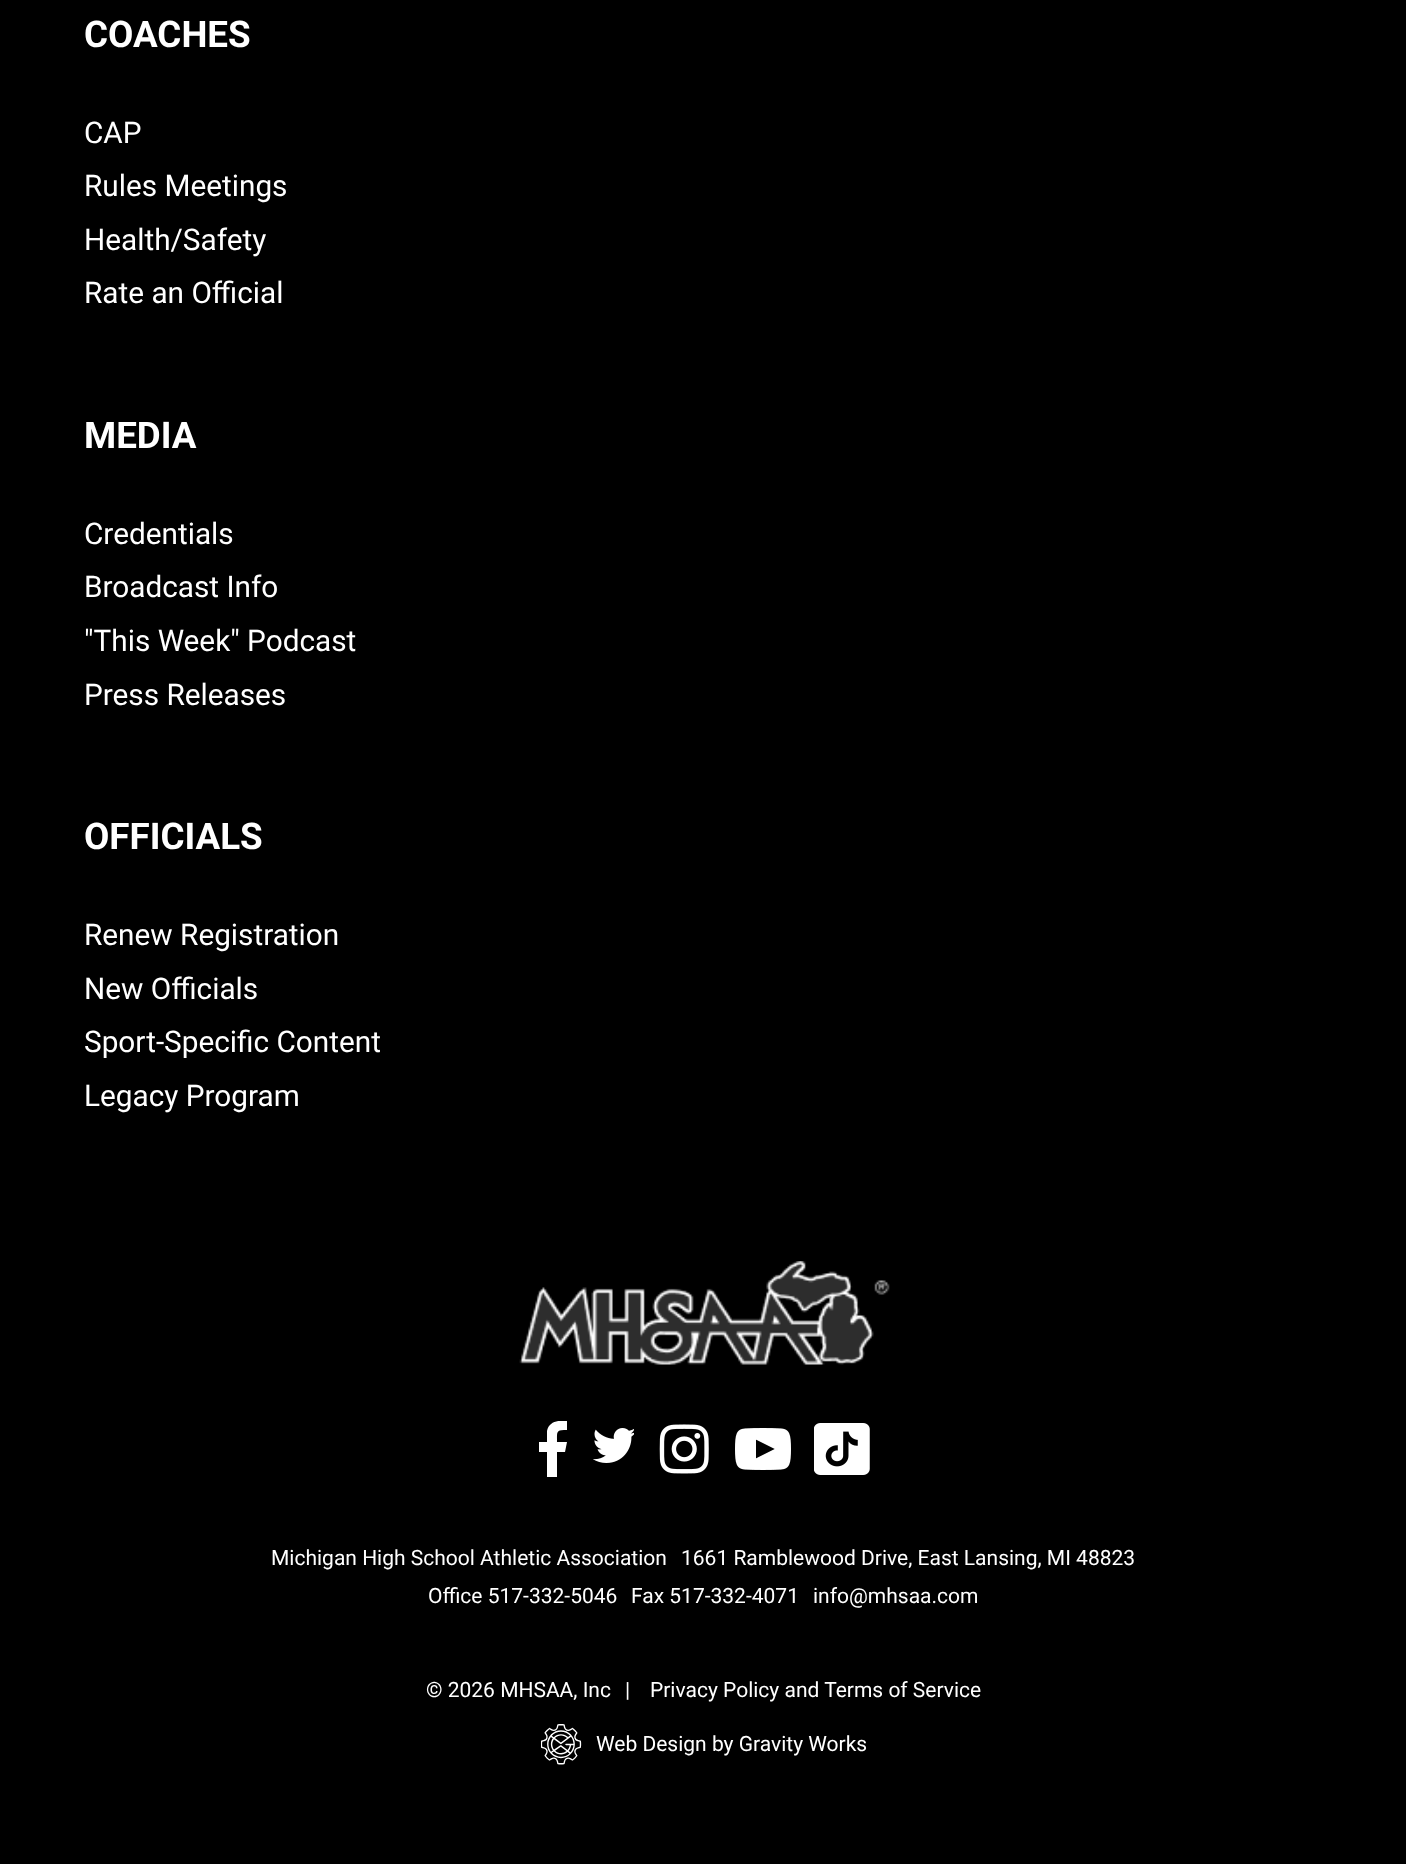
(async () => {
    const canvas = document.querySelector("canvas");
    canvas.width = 1406;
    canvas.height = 1865;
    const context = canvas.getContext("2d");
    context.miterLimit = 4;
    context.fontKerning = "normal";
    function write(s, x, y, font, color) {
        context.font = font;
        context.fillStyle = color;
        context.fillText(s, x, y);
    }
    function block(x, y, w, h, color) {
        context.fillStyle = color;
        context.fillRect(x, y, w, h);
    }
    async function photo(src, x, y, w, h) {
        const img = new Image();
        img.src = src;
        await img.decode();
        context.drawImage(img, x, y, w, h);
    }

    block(0, 0, 1406, 1865, "rgb(255, 255, 255)");
    block(0, 0, 1406, 1864, "rgb(0, 0, 0)");
    write("COACHES", 84, 47, "bold 36.75px Roboto", "rgb(255, 255, 255)");
    write("CAP", 84, 143, "29.75px Roboto", "rgb(255, 255, 255)");
    write("Rules Meetings", 84, 196, "29.75px Roboto", "rgb(255, 255, 255)");
    write("Health/Safety", 84, 250, "29.75px Roboto", "rgb(255, 255, 255)");
    write("Rate an Official", 84, 303, "29.75px Roboto", "rgb(255, 255, 255)");
    write("MEDIA", 84, 448, "bold 36.75px Roboto", "rgb(255, 255, 255)");
    write("Credentials", 84, 544, "29.75px Roboto", "rgb(255, 255, 255)");
    write("Broadcast Info", 84, 597, "29.75px Roboto", "rgb(255, 255, 255)");
    write("\"This Week\" Podcast", 84, 651, "29.75px Roboto", "rgb(255, 255, 255)");
    write("Press Releases", 84, 705, "29.75px Roboto", "rgb(255, 255, 255)");
    write("OFFICIALS", 84, 849, "bold 36.75px Roboto", "rgb(255, 255, 255)");
    write("Renew Registration", 84, 945, "29.75px Roboto", "rgb(255, 255, 255)");
    write("New Officials", 84, 999, "29.75px Roboto", "rgb(255, 255, 255)");
    write("Sport-Specific Content", 84, 1052, "29.75px Roboto", "rgb(255, 255, 255)");
    write("Legacy Program", 84, 1106, "29.75px Roboto", "rgb(255, 255, 255)");
    await photo("media/1.png", 519, 1261, 371, 104);
    context.save();
    context.beginPath();
    context.rect(537, 1421, 32, 56);
    context.clip();
    context.beginPath();
    context.moveTo(547, 1477);
    context.lineTo(547, 1452);
    context.lineTo(539, 1452);
    context.lineTo(539, 1442);
    context.lineTo(547, 1442);
    context.lineTo(547, 1431);
    context.bezierCurveTo(549, 1421, 559, 1420, 567, 1421);
    context.lineTo(567, 1430);
    context.bezierCurveTo(556, 1430, 557, 1431, 557, 1442);
    context.lineTo(567, 1442);
    context.lineTo(565, 1452);
    context.lineTo(557, 1452);
    context.lineTo(557, 1477);
    context.fill();
    context.restore();
    await photo("media/2.png", 593, 1428, 41, 35);
    await photo("media/3.png", 659, 1424, 50, 50);
    await photo("media/4.png", 735, 1428, 56, 42);
    await photo("media/5.png", 814, 1423, 56, 52);
    write("Michigan High School Athletic Association", 271, 1565, "21px Roboto", "rgb(255, 255, 255)");
    write("1661 Ramblewood Drive, East Lansing, MI 48823", 681, 1565, "21px Roboto", "rgb(255, 255, 255)");
    write("Office 517-332-5046", 428, 1603, "21px Roboto", "rgb(255, 255, 255)");
    write("Fax 517-332-4071", 631, 1603, "21px Roboto", "rgb(255, 255, 255)");
    write("info@mhsaa.com", 813, 1603, "21px Roboto", "rgb(255, 255, 255)");
    write("© 2026 MHSAA, Inc", 426, 1697, "21px Roboto", "rgb(255, 255, 255)");
    write("|", 625, 1697, "21px Roboto", "rgb(255, 255, 255)");
    write("Privacy Policy and Terms of Service", 650, 1697, "21px Roboto", "rgb(255, 255, 255)");
    await photo("media/6.png", 541, 1724, 41, 41);
    write("Web Design by Gravity Works", 596, 1751, "21px Roboto", "rgb(255, 255, 255)");
})();
